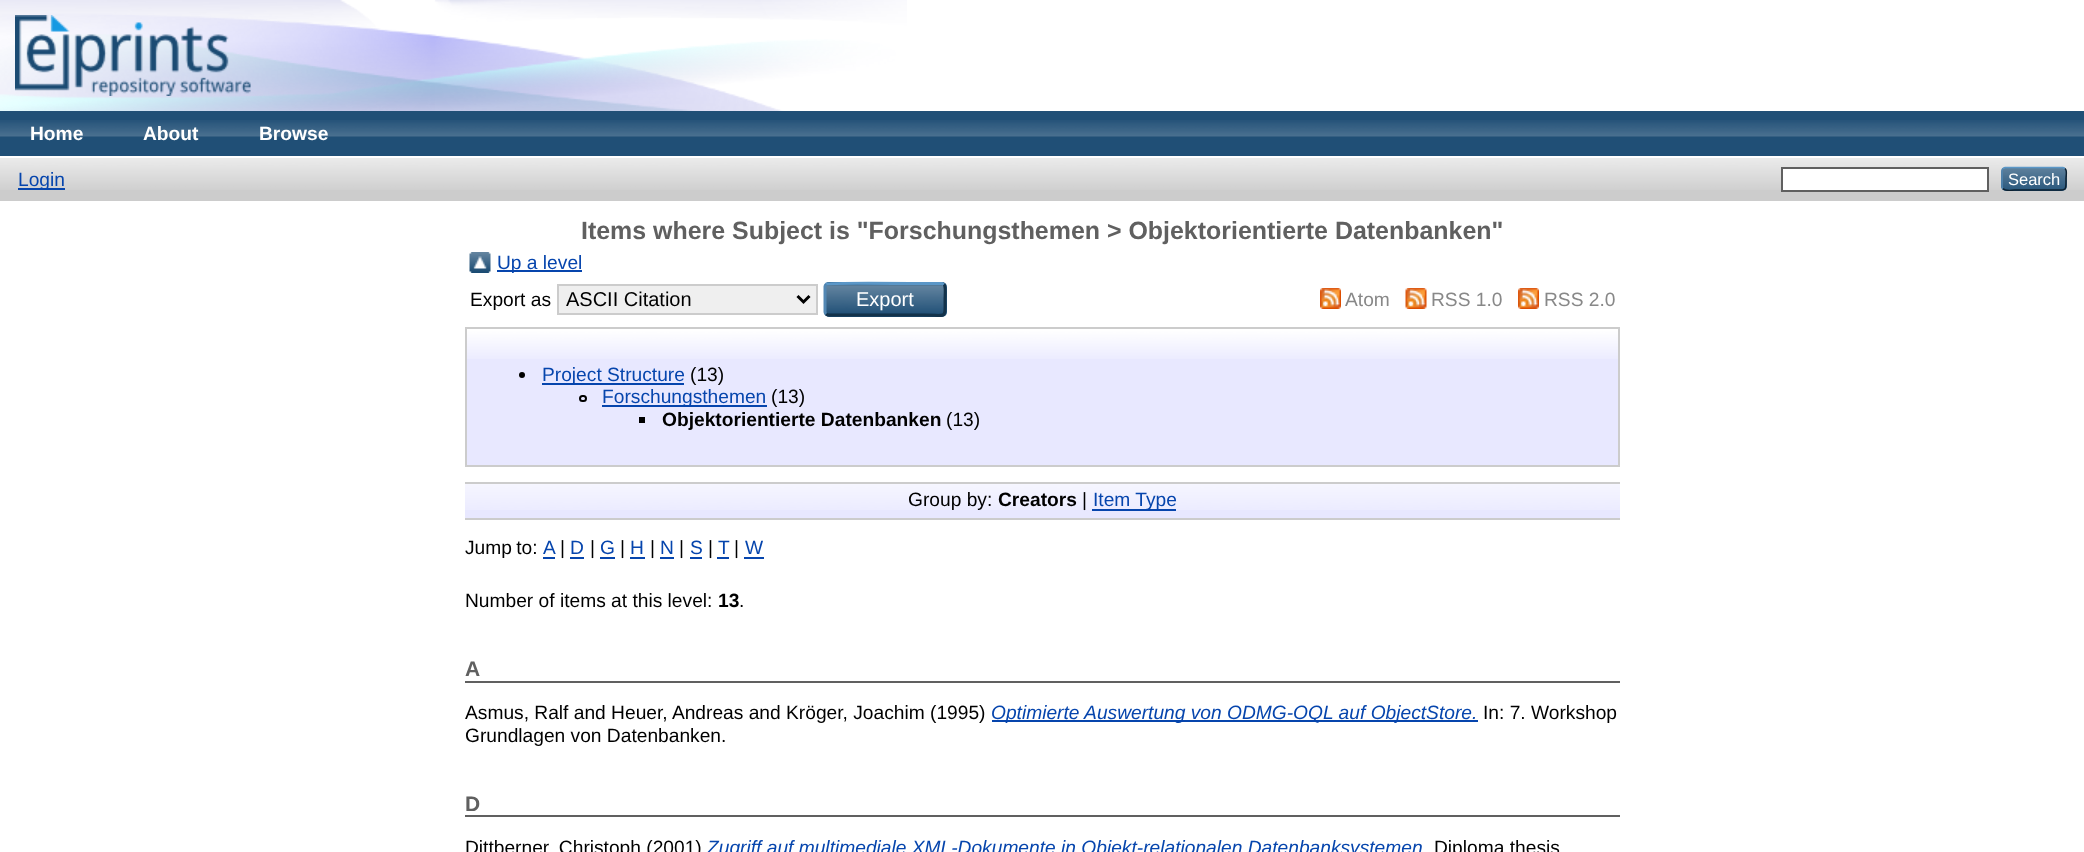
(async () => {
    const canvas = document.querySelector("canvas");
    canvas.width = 2084;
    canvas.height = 852;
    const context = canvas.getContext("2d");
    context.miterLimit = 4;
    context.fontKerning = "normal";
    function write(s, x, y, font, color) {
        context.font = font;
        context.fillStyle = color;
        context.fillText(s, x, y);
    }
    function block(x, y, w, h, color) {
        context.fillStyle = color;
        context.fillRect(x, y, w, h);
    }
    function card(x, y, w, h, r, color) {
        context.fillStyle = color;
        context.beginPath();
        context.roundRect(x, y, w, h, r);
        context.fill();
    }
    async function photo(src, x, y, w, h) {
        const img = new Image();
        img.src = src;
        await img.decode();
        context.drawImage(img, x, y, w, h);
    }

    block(0, 0, 2084, 852, "rgb(255, 255, 255)");
    await photo("media/1.png", 0, 0, 907, 111);
    await photo("media/2.png", 15, 15, 236, 81);
    block(0, 111, 2084, 45, "rgb(32, 79, 118)");
    await photo("media/3.png", 0, 120, 2084, 17);
    write("Home", 30, 140, "bold 19.2px Liberation Sans", "rgb(255, 255, 255)");
    write("About", 143, 140, "bold 19.2px Liberation Sans", "rgb(255, 255, 255)");
    write("Browse", 259, 140, "bold 19.2px Liberation Sans", "rgb(255, 255, 255)");
    block(0, 158, 2084, 43, "rgb(204, 204, 204)");
    await photo("media/4.png", 0, 158, 2084, 32);
    block(18, 188, 47, 2, "rgb(6, 69, 173)");
    write("Login", 18, 186, "19.2px Liberation Sans", "rgb(6, 69, 173)");
    context.fillStyle = "rgb(255, 255, 255)";
    context.beginPath();
    context.rect(1782, 168, 206, 23);
    context.fill();
    context.strokeStyle = "rgb(96, 96, 96)";
    context.lineWidth = 2;
    context.stroke();
    card(2001, 167, 66, 24, 5, "rgb(31, 79, 118)");
    await photo("media/5.png", 2001, 167, 66, 23);
    context.beginPath();
    context.moveTo(2003, 168.5);
    context.lineTo(2005, 167.5);
    context.lineTo(2063, 167.5);
    context.lineTo(2065, 168.5);
    context.strokeStyle = "rgb(91, 151, 199)";
    context.lineWidth = 1.5;
    context.stroke();
    context.beginPath();
    context.moveTo(2065, 168.5);
    context.bezierCurveTo(2067.5, 170.5, 2066, 175.5, 2066, 178.5);
    context.bezierCurveTo(2066, 191.5, 2067, 190, 2053, 190);
    context.lineTo(2015, 190);
    context.bezierCurveTo(2014.5, 190, 2005.5, 191.5, 2003, 188.5);
    context.strokeStyle = "rgb(13, 33, 49)";
    context.stroke();
    context.beginPath();
    context.moveTo(2003, 188.5);
    context.bezierCurveTo(2002, 188, 2002, 187, 2002, 186);
    context.lineTo(2002, 171);
    context.bezierCurveTo(2002, 170, 2002, 169, 2003, 168.5);
    context.strokeStyle = "rgb(82, 135, 179)";
    context.stroke();
    write("Search", 2008, 185, "16.5px Liberation Sans", "rgb(255, 255, 255)");
    write("Items where Subject is \"Forschungsthemen > Objektorientierte Datenbanken\"", 581, 239, "bold 24.95px Liberation Sans", "rgb(96, 96, 96)");
    await photo("media/6.png", 469, 252, 22, 21);
    block(497, 270, 85, 2, "rgb(6, 69, 173)");
    write("Up a level", 497, 269, "19.2px Liberation Sans", "rgb(6, 69, 173)");
    write("Export as", 470, 306, "19.2px Liberation Sans", "rgb(0, 0, 0)");
    context.fillStyle = "rgb(239, 239, 239)";
    context.beginPath();
    context.rect(558, 285, 259, 29);
    context.fill();
    context.strokeStyle = "rgb(204, 204, 204)";
    context.lineWidth = 2;
    context.stroke();
    context.beginPath();
    context.moveTo(797.5, 296);
    context.lineTo(803.5, 302);
    context.lineTo(809.5, 296);
    context.strokeStyle = "rgb(0, 0, 0)";
    context.lineWidth = 3;
    context.stroke();
    write("ASCII Citation", 566, 306, "20px Liberation Sans", "rgb(0, 0, 0)");
    card(824, 282, 123, 35, 5, "rgb(31, 79, 118)");
    await photo("media/7.png", 824, 284, 123, 29);
    context.beginPath();
    context.moveTo(826, 284.5);
    context.lineTo(826.5, 284);
    context.bezierCurveTo(828.5, 282.5, 913, 283.5, 923, 283.5);
    context.lineTo(942, 283.5);
    context.lineTo(944, 284.5);
    context.strokeStyle = "rgb(91, 151, 199)";
    context.stroke();
    context.beginPath();
    context.moveTo(944, 284.5);
    context.bezierCurveTo(946, 286.5, 945, 296.5, 945, 299);
    context.bezierCurveTo(945, 320, 947.5, 315, 923, 315);
    context.lineTo(828, 315);
    context.lineTo(826, 314);
    context.strokeStyle = "rgb(19, 50, 74)";
    context.stroke();
    context.beginPath();
    context.moveTo(826, 314);
    context.bezierCurveTo(825.5, 313.5, 825, 313, 825, 312);
    context.lineTo(825, 286.5);
    context.bezierCurveTo(825, 285.5, 825.5, 285, 826, 284.5);
    context.strokeStyle = "rgb(82, 135, 179)";
    context.stroke();
    write("Export", 856, 306, "20px Liberation Sans", "rgb(255, 255, 255)");
    await photo("media/8.png", 1320, 288, 21, 21);
    write("Atom", 1345, 306, "19.2px Liberation Sans", "rgb(136, 136, 136)");
    await photo("media/9.png", 1405, 288, 22, 21);
    write("RSS 1.0", 1431, 306, "19.2px Liberation Sans", "rgb(136, 136, 136)");
    await photo("media/10.png", 1518, 288, 21, 21);
    write("RSS 2.0", 1544, 306, "19.2px Liberation Sans", "rgb(136, 136, 136)");
    block(467, 330, 1151, 135, "rgb(232, 232, 255)");
    await photo("media/11.png", 467, 329, 1151, 30);
    context.strokeStyle = "rgb(204, 204, 204)";
    context.lineWidth = 2;
    context.strokeRect(466, 328, 1153, 138);
    context.fillStyle = "rgb(0, 0, 0)";
    context.beginPath();
    context.arc(522, 375, 3, 0, Math.PI * 2);
    context.fill();
    block(542, 383, 142, 2, "rgb(6, 69, 173)");
    write("Project Structure", 542, 381, "19.2px Liberation Sans", "rgb(6, 69, 173)");
    write("(13)", 690, 381, "19.2px Liberation Sans", "rgb(0, 0, 0)");
    context.beginPath();
    context.roundRect(580, 396, 6, 5, 2.5);
    context.strokeStyle = "rgb(0, 0, 0)";
    context.stroke();
    block(602, 405, 165, 2, "rgb(6, 69, 173)");
    write("Forschungsthemen", 602, 403, "19.2px Liberation Sans", "rgb(6, 69, 173)");
    write("(13)", 771, 403, "19.2px Liberation Sans", "rgb(0, 0, 0)");
    block(639, 417, 6, 6, "rgb(0, 0, 0)");
    write("Objektorientierte Datenbanken", 662, 426, "bold 19.2px Liberation Sans", "rgb(0, 0, 0)");
    write("(13)", 946, 426, "19.2px Liberation Sans", "rgb(0, 0, 0)");
    block(465, 484, 1155, 34, "rgb(232, 232, 255)");
    await photo("media/12.png", 465, 484, 1155, 26);
    block(465, 482, 1155, 2, "rgb(204, 204, 204)");
    block(465, 518, 1155, 2, "rgb(204, 204, 204)");
    write("Group by:", 908, 506, "19.2px Liberation Sans", "rgb(0, 0, 0)");
    write("Creators", 998, 506, "bold 19.2px Liberation Sans", "rgb(0, 0, 0)");
    write("|", 1082, 506, "19.2px Liberation Sans", "rgb(0, 0, 0)");
    block(1092, 509, 84, 2, "rgb(6, 69, 173)");
    write("Item Type", 1093, 506, "19.2px Liberation Sans", "rgb(6, 69, 173)");
    context.wordSpacing = "-1px";
    write("Jump to:", 465, 554, "19.2px Liberation Sans", "rgb(0, 0, 0)");
    context.wordSpacing = "0px";
    write("A", 543, 554, "19.2px Liberation Sans", "rgb(6, 69, 173)");
    block(543, 557, 12, 2, "rgb(6, 69, 173)");
    write("|", 560, 554, "19.2px Liberation Sans", "rgb(0, 0, 0)");
    write("D", 570, 554, "19.2px Liberation Sans", "rgb(6, 69, 173)");
    block(570, 557, 14, 2, "rgb(6, 69, 173)");
    write("|", 590, 554, "19.2px Liberation Sans", "rgb(0, 0, 0)");
    write("G", 600, 554, "19.2px Liberation Sans", "rgb(6, 69, 173)");
    block(600, 557, 15, 2, "rgb(6, 69, 173)");
    write("|", 620, 554, "19.2px Liberation Sans", "rgb(0, 0, 0)");
    write("H", 630, 554, "19.2px Liberation Sans", "rgb(6, 69, 173)");
    block(630, 557, 15, 2, "rgb(6, 69, 173)");
    write("|", 650, 554, "19.2px Liberation Sans", "rgb(0, 0, 0)");
    write("N", 660, 554, "19.2px Liberation Sans", "rgb(6, 69, 173)");
    block(660, 557, 14, 2, "rgb(6, 69, 173)");
    write("|", 679, 554, "19.2px Liberation Sans", "rgb(0, 0, 0)");
    write("S", 690, 554, "19.2px Liberation Sans", "rgb(6, 69, 173)");
    block(690, 557, 12, 2, "rgb(6, 69, 173)");
    write("|", 708, 554, "19.2px Liberation Sans", "rgb(0, 0, 0)");
    write("T", 718, 554, "19.2px Liberation Sans", "rgb(6, 69, 173)");
    block(717, 557, 12, 2, "rgb(6, 69, 173)");
    write("|", 734, 554, "19.2px Liberation Sans", "rgb(0, 0, 0)");
    write("W", 745, 554, "19.2px Liberation Sans", "rgb(6, 69, 173)");
    block(744, 557, 20, 2, "rgb(6, 69, 173)");
    write("Number of items at this level:", 465, 607, "19.2px Liberation Sans", "rgb(0, 0, 0)");
    write("13", 718, 607, "bold 19.2px Liberation Sans", "rgb(0, 0, 0)");
    write(".", 739, 607, "19.2px Liberation Sans", "rgb(0, 0, 0)");
    block(465, 681, 1155, 2, "rgb(96, 96, 96)");
    write("A", 465, 676, "bold 21px Liberation Sans", "rgb(96, 96, 96)");
    write("Asmus, Ralf and Heuer, Andreas and Kröger, Joachim (1995)", 465, 719, "19.2px Liberation Sans", "rgb(0, 0, 0)");
    block(992, 720, 486, 2, "rgb(6, 69, 173)");
    write("Optimierte Auswertung von ODMG-OQL auf ObjectStore.", 991, 719, "italic 19.2px Liberation Sans", "rgb(6, 69, 173)");
    write("In: 7. Workshop", 1483, 719, "19.2px Liberation Sans", "rgb(0, 0, 0)");
    write("Grundlagen von Datenbanken.", 465, 742, "19.2px Liberation Sans", "rgb(0, 0, 0)");
    block(465, 815, 1155, 2, "rgb(96, 96, 96)");
    write("D", 465, 811, "bold 21px Liberation Sans", "rgb(96, 96, 96)");
    write("Dittberner, Christoph (2001)", 465, 854, "19.2px Liberation Sans", "rgb(0, 0, 0)");
    write("Zugriff auf multimediale XML-Dokumente in Objekt-relationalen Datenbanksystemen", 707, 854, "italic 19.2px Liberation Sans", "rgb(6, 69, 173)");
    write("Diploma thesis", 1434, 854, "19.2px Liberation Sans", "rgb(0, 0, 0)");
})();
